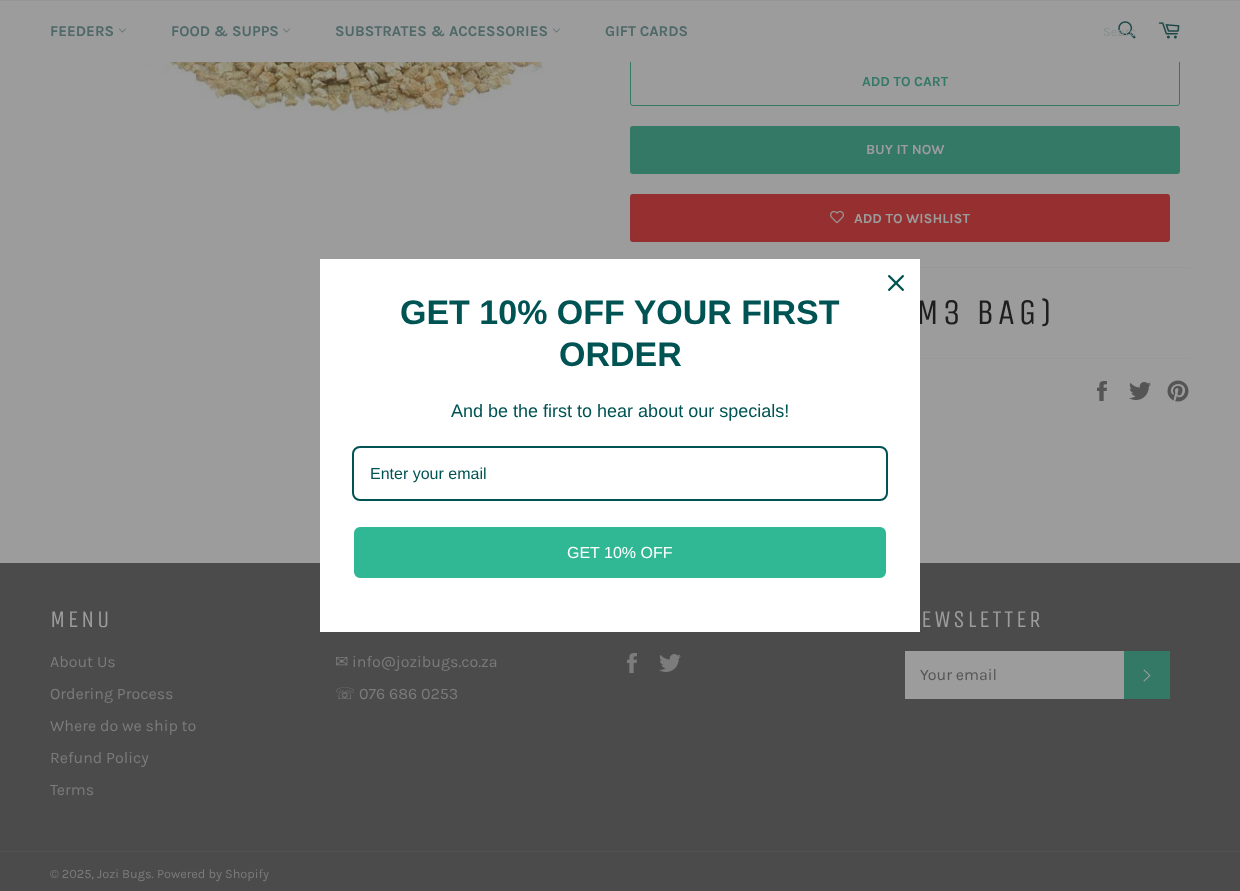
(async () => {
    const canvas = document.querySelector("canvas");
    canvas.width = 1240;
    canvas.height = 891;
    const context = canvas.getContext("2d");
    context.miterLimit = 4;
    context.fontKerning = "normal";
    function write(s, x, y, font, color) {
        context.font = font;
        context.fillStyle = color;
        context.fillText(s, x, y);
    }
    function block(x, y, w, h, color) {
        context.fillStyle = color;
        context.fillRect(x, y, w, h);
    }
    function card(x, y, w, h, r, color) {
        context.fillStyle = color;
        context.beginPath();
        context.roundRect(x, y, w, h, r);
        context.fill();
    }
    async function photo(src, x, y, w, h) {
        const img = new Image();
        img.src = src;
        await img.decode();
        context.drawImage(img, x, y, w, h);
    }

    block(0, 0, 1240, 891, "rgb(156, 156, 156)");
    context.beginPath();
    context.roundRect(630.5, 58.5, 549, 47, 2.5);
    context.strokeStyle = "rgb(52, 120, 102)";
    context.stroke();
    block(630, 58, 550, 4, "rgb(156, 156, 156)");
    block(0, 0, 1240, 1, "rgb(149, 149, 149)");
    write("FEEDERS", 50, 36, "bold 15px Karla", "rgb(79, 104, 104)");
    await photo("media/1.png", 119, 28, 7, 5);
    write("FOOD & SUPPS", 171, 36, "bold 15px Karla", "rgb(79, 104, 104)");
    await photo("media/1.png", 283, 28, 7, 5);
    write("SUBSTRATES & ACCESSORIES", 335, 36, "bold 15px Karla", "rgb(79, 104, 104)");
    await photo("media/1.png", 553, 28, 7, 5);
    write("GIFT CARDS", 605, 36, "bold 15px Karla", "rgb(79, 104, 104)");
    await photo("media/2.png", 1118, 21, 18, 18);
    write("Searc", 1103, 36, "13px Karla", "rgb(135, 142, 142)");
    await photo("media/3.png", 1158, 22, 22, 17);
    await photo("media/4.png", 102, 62, 455, 53);
    write("ADD TO CART", 862, 86, "bold 14px Karla", "rgb(52, 120, 102)");
    card(630, 126, 550, 48, 3, "rgb(52, 120, 102)");
    write("BUY IT NOW", 866, 154, "bold 14px Karla", "rgb(156, 156, 156)");
    card(630, 194, 540, 48, 3, "rgb(150, 47, 47)");
    await photo("media/5.png", 830, 210, 14, 14);
    write("ADD TO WISHLIST", 854, 223, "bold 14px Karla", "rgb(156, 156, 156)");
    block(920, 267, 270, 1, "rgb(152, 152, 152)");
    context.letterSpacing = "3.5px";
    write("M3 BAG)", 916, 324, "36px Unica One", "rgb(30, 30, 30)");
    block(920, 358, 270, 1, "rgb(152, 152, 152)");
    await photo("media/6.png", 1097, 381, 10, 20);
    await photo("media/7.png", 1129, 382, 22, 18);
    await photo("media/8.png", 1167, 380, 22, 22);
    block(0, 563, 1240, 328, "rgb(75, 75, 75)");
    context.letterSpacing = "2.5px";
    write("MENU", 50, 627, "24px Unica One", "rgb(156, 156, 156)");
    context.letterSpacing = "0px";
    write("About Us", 50, 667, "16px Karla", "rgb(123, 123, 124)");
    write("Ordering Process", 50, 699, "16px Karla", "rgb(123, 123, 124)");
    write("Where do we ship to", 50, 731, "16px Karla", "rgb(123, 123, 124)");
    write("Refund Policy", 50, 763, "16px Karla", "rgb(123, 123, 124)");
    write("Terms", 50, 795, "16px Karla", "rgb(123, 123, 124)");
    write("✉", 335, 667, "16px DejaVu Sans", "rgb(123, 123, 124)");
    write("info@jozibugs.co.za", 352, 667, "16px Karla", "rgb(123, 123, 124)");
    write("☏", 335, 699, "16px DejaVu Sans", "rgb(123, 123, 124)");
    write("076 686 0253", 359, 699, "16px Karla", "rgb(123, 123, 124)");
    await photo("media/9.png", 627, 653, 10, 20);
    await photo("media/10.png", 659, 654, 22, 18);
    context.letterSpacing = "2.5px";
    write("EWSLETTER", 921, 627, "24px Unica One", "rgb(156, 156, 156)");
    block(905, 651, 219, 48, "rgb(156, 156, 156)");
    context.letterSpacing = "0px";
    write("Your email", 920, 680, "16px Karla", "rgb(85, 85, 85)");
    block(1124, 651, 46, 48, "rgb(52, 120, 102)");
    await photo("media/11.png", 1143, 669, 8, 13);
    block(0, 851, 1240, 1, "rgb(81, 81, 82)");
    write("© 2025, Jozi Bugs. Powered by Shopify", 50, 878, "12.75px Karla", "rgb(123, 123, 124)");
    block(320, 259, 600, 373, "rgb(255, 255, 255)");
    await photo("media/12.png", 888, 275, 16, 16);
    write("GET 10% OFF YOUR FIRST", 400, 324, "bold 34px Liberation Sans", "rgb(0, 83, 83)");
    write("ORDER", 559, 366, "bold 34px Liberation Sans", "rgb(0, 83, 83)");
    write("And be the first to hear about our specials!", 451, 417, "18px Liberation Sans", "rgb(0, 83, 83)");
    context.beginPath();
    context.roundRect(353, 447, 534, 53, 7);
    context.strokeStyle = "rgb(0, 83, 83)";
    context.lineWidth = 2;
    context.stroke();
    write("Enter your email", 370, 479, "16px Liberation Sans", "rgb(0, 83, 83)");
    context.fillStyle = "rgb(48, 184, 148)";
    context.beginPath();
    context.roundRect(353, 526, 534, 53, 7);
    context.fill();
    context.strokeStyle = "rgb(255, 255, 255)";
    context.stroke();
    write("GET 10% OFF", 567, 558, "16px Liberation Sans", "rgb(255, 255, 255)");
})();
